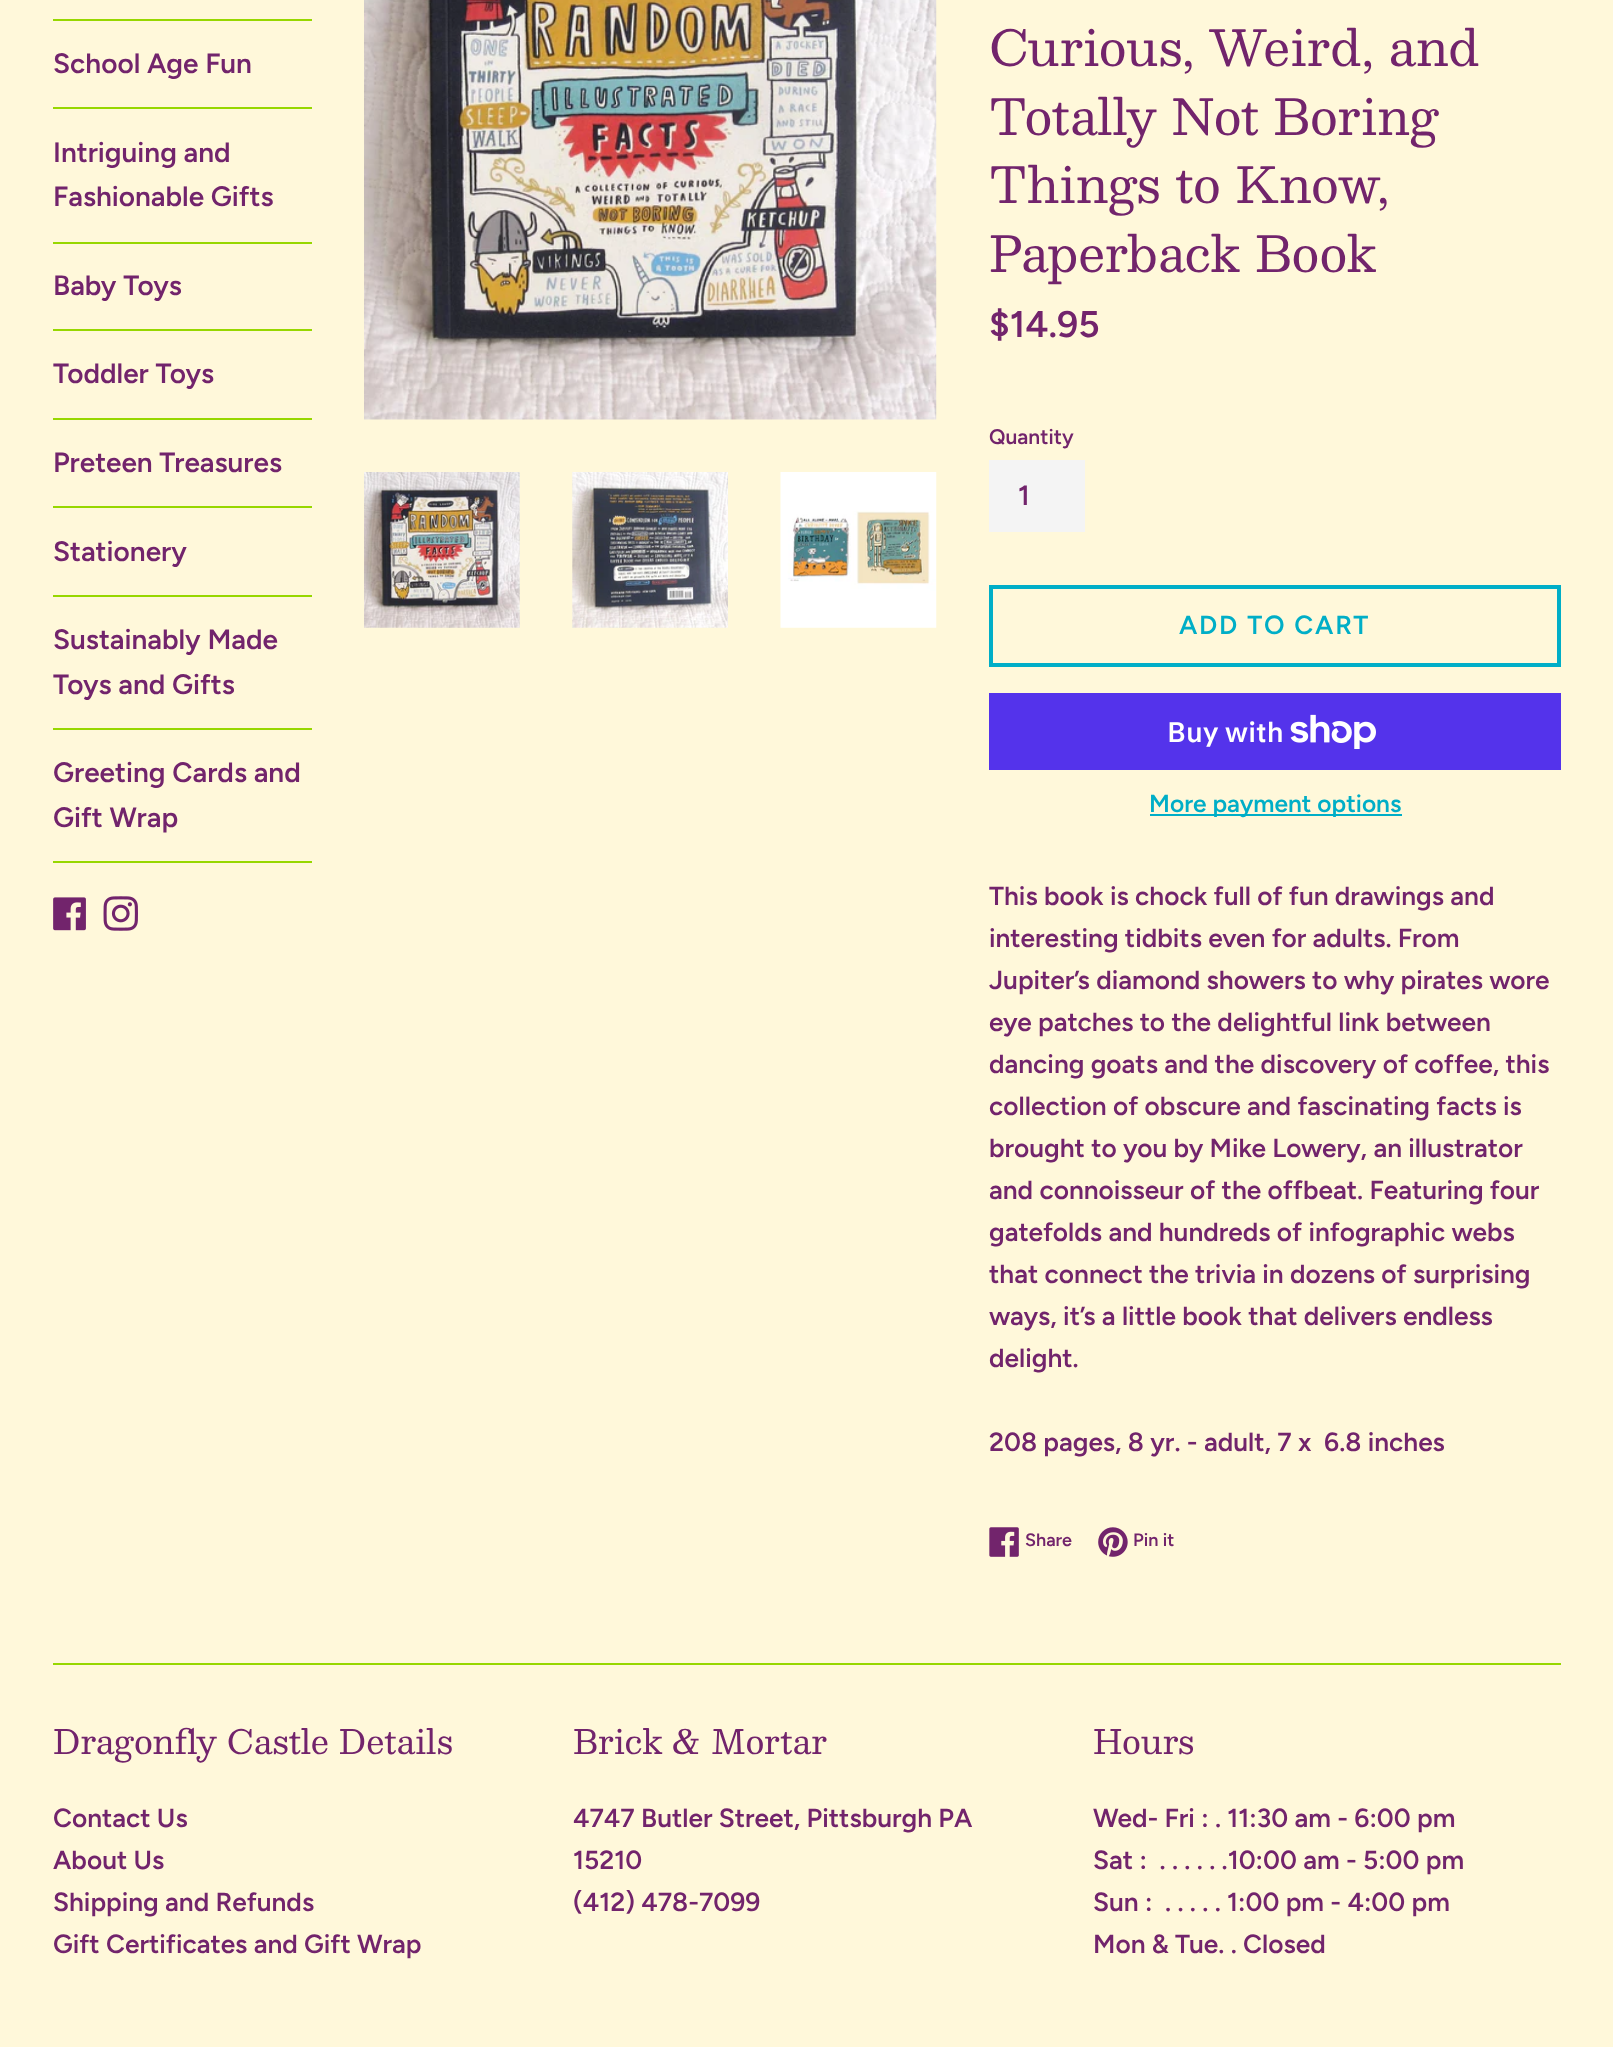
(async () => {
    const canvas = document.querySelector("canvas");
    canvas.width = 1613;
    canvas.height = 2047;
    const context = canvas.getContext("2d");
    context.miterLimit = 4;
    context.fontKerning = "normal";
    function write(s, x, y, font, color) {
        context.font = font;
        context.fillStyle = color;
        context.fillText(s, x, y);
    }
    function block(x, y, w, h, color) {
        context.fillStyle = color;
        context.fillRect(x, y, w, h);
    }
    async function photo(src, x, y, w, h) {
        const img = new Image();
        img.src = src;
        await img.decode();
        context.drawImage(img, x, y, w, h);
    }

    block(0, 0, 1613, 2047, "rgb(255, 248, 218)");
    block(53, 19, 259, 2, "rgb(151, 215, 0)");
    block(53, 107, 259, 2, "rgb(151, 215, 0)");
    write("School Age Fun", 53, 73, "600 28px Figtree", "rgb(114, 36, 108)");
    block(53, 242, 259, 2, "rgb(151, 215, 0)");
    write("Intriguing and", 53, 162, "600 28px Figtree", "rgb(114, 36, 108)");
    write("Fashionable Gifts", 53, 206, "600 28px Figtree", "rgb(114, 36, 108)");
    block(53, 329, 259, 2, "rgb(151, 215, 0)");
    write("Baby Toys", 53, 295, "600 28px Figtree", "rgb(114, 36, 108)");
    block(53, 418, 259, 2, "rgb(151, 215, 0)");
    write("Toddler Toys", 53, 383, "600 28px Figtree", "rgb(114, 36, 108)");
    block(53, 506, 259, 2, "rgb(151, 215, 0)");
    write("Preteen Treasures", 53, 472, "600 28px Figtree", "rgb(114, 36, 108)");
    block(53, 595, 259, 2, "rgb(151, 215, 0)");
    write("Stationery", 53, 561, "600 28px Figtree", "rgb(114, 36, 108)");
    block(53, 728, 259, 2, "rgb(151, 215, 0)");
    write("Sustainably Made", 53, 649, "600 28px Figtree", "rgb(114, 36, 108)");
    write("Toys and Gifts", 53, 694, "600 28px Figtree", "rgb(114, 36, 108)");
    block(53, 861, 259, 2, "rgb(151, 215, 0)");
    write("Greeting Cards and", 53, 782, "600 28px Figtree", "rgb(114, 36, 108)");
    write("Gift Wrap", 53, 827, "600 28px Figtree", "rgb(114, 36, 108)");
    await photo("media/1.png", 53, 897, 33, 34);
    await photo("media/2.png", 103, 896, 35, 35);
    await photo("media/3.png", 364, 0, 573, 420);
    await photo("media/4.png", 364, 472, 156, 156);
    await photo("media/5.png", 572, 472, 156, 156);
    await photo("media/6.png", 780, 472, 157, 156);
    write("Curious, Weird, and", 989, 66, "49px Besley", "rgb(114, 36, 108)");
    write("Totally Not Boring", 989, 135, "49px Besley", "rgb(114, 36, 108)");
    write("Things to Know,", 989, 203, "49px Besley", "rgb(114, 36, 108)");
    write("Paperback Book", 989, 272, "49px Besley", "rgb(114, 36, 108)");
    write("$14.95", 989, 337, "600 37px Figtree", "rgb(114, 36, 108)");
    write("Quantity", 989, 444, "600 21px Figtree", "rgb(114, 36, 108)");
    block(989, 460, 96, 72, "rgb(244, 244, 244)");
    write("1", 1018, 505, "600 28px Figtree", "rgb(114, 36, 108)");
    context.strokeStyle = "rgb(0, 174, 199)";
    context.lineWidth = 4;
    context.strokeRect(991, 587, 568, 78);
    context.letterSpacing = "1.75px";
    write("ADD TO CART", 1179, 634, "600 26.25px Figtree", "rgb(0, 174, 199)");
    block(989, 693, 572, 77, "rgb(84, 51, 235)");
    context.letterSpacing = "0px";
    write("Buy with", 1167, 742, "600 28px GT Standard", "rgb(255, 255, 255)");
    await photo("media/7.png", 1290, 714, 86, 35);
    block(1150, 814, 252, 2, "rgb(0, 174, 199)");
    write("More payment options", 1149, 812, "600 24.5px Figtree", "rgb(0, 174, 199)");
    write("This book is chock full of fun drawings and", 989, 905, "600 26.25px Figtree", "rgb(114, 36, 108)");
    write("interesting tidbits even for adults. From", 989, 947, "600 26.25px Figtree", "rgb(114, 36, 108)");
    write("Jupiter’s diamond showers to why pirates wore", 989, 989, "600 26.25px Figtree", "rgb(114, 36, 108)");
    write("eye patches to the delightful link between", 989, 1031, "600 26.25px Figtree", "rgb(114, 36, 108)");
    write("dancing goats and the discovery of coffee, this", 989, 1073, "600 26.25px Figtree", "rgb(114, 36, 108)");
    write("collection of obscure and fascinating facts is", 989, 1115, "600 26.25px Figtree", "rgb(114, 36, 108)");
    write("brought to you by Mike Lowery, an illustrator", 989, 1157, "600 26.25px Figtree", "rgb(114, 36, 108)");
    write("and connoisseur of the offbeat. Featuring four", 989, 1199, "600 26.25px Figtree", "rgb(114, 36, 108)");
    write("gatefolds and hundreds of infographic webs", 989, 1241, "600 26.25px Figtree", "rgb(114, 36, 108)");
    write("that connect the trivia in dozens of surprising", 989, 1283, "600 26.25px Figtree", "rgb(114, 36, 108)");
    write("ways, it’s a little book that delivers endless", 989, 1325, "600 26.25px Figtree", "rgb(114, 36, 108)");
    write("delight.", 989, 1367, "600 26.25px Figtree", "rgb(114, 36, 108)");
    write("208 pages, 8 yr. - adult, 7 x  6.8 inches", 989, 1451, "600 26.25px Figtree", "rgb(114, 36, 108)");
    await photo("media/8.png", 989, 1527, 30, 30);
    write("Share", 1025, 1546, "600 18px Figtree", "rgb(114, 36, 108)");
    await photo("media/9.png", 1098, 1527, 30, 30);
    write("Pin it", 1133, 1546, "600 18px Figtree", "rgb(114, 36, 108)");
    block(53, 1663, 1508, 2, "rgb(151, 215, 0)");
    write("Dragonfly Castle Details", 53, 1754, "33.25px Besley", "rgb(114, 36, 108)");
    write("Contact Us", 53, 1827, "600 26.25px Figtree", "rgb(114, 36, 108)");
    write("About Us", 53, 1869, "600 26.25px Figtree", "rgb(114, 36, 108)");
    write("Shipping and Refunds", 53, 1911, "600 26.25px Figtree", "rgb(114, 36, 108)");
    write("Gift Certificates and Gift Wrap", 53, 1953, "600 26.25px Figtree", "rgb(114, 36, 108)");
    write("Brick & Mortar", 573, 1754, "33.25px Besley", "rgb(114, 36, 108)");
    write("4747 Butler Street, Pittsburgh PA", 573, 1827, "600 26.25px Figtree", "rgb(114, 36, 108)");
    write("15210", 573, 1869, "600 26.25px Figtree", "rgb(114, 36, 108)");
    write("(412) 478-7099", 573, 1911, "600 26.25px Figtree", "rgb(114, 36, 108)");
    write("Hours", 1093, 1754, "33.25px Besley", "rgb(114, 36, 108)");
    write("Wed- Fri : . 11:30 am - 6:00 pm", 1093, 1827, "600 26.25px Figtree", "rgb(114, 36, 108)");
    write("Sat :  . . . . . .10:00 am - 5:00 pm", 1093, 1869, "600 26.25px Figtree", "rgb(114, 36, 108)");
    write("Sun :  . . . . . 1:00 pm - 4:00 pm", 1093, 1911, "600 26.25px Figtree", "rgb(114, 36, 108)");
    write("Mon & Tue. . Closed", 1093, 1953, "600 26.25px Figtree", "rgb(114, 36, 108)");
})();
